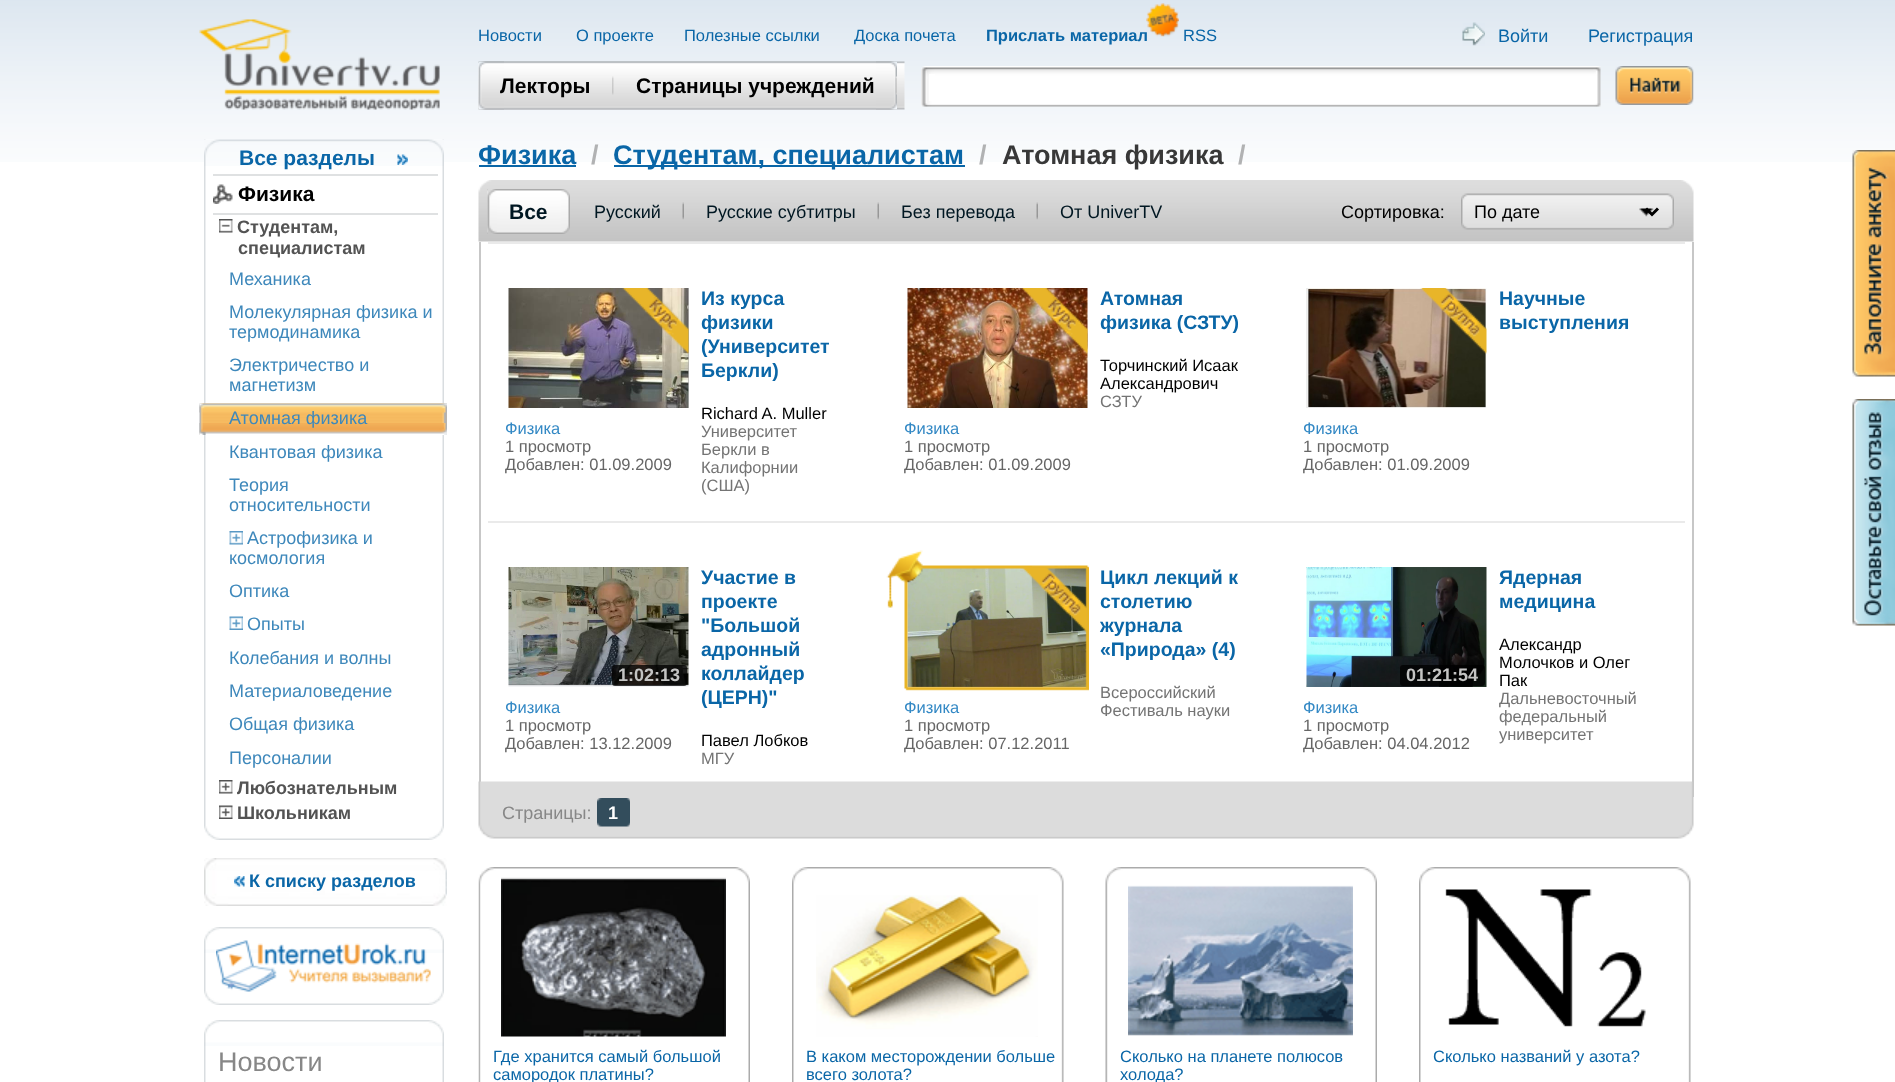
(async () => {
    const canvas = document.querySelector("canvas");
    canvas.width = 1895;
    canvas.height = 1082;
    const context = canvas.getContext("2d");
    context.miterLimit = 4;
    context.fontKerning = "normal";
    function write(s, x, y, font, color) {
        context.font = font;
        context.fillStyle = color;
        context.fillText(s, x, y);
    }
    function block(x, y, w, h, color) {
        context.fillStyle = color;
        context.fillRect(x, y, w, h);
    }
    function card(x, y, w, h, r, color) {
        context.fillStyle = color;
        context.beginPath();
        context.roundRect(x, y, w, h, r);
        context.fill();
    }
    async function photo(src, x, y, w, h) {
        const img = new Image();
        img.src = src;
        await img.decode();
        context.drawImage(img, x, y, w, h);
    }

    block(0, 0, 1895, 1082, "rgb(255, 255, 255)");
    await photo("media/1.png", 0, 0, 1895, 162);
    await photo("media/2.png", 199, 19, 241, 91);
    await photo("media/3.png", 204, 139, 240, 687);
    await photo("media/4.png", 204, 139, 240, 27);
    await photo("media/5.png", 204, 826, 240, 14);
    write("Все разделы", 239, 165, "bold 21px Liberation Sans", "rgb(10, 102, 167)");
    await photo("media/6.png", 397, 154, 11, 11);
    block(213, 174, 225, 2, "rgb(223, 225, 226)");
    block(213, 213, 225, 2, "rgb(223, 225, 226)");
    await photo("media/7.png", 213, 184, 20, 20);
    write("Физика", 238, 201, "bold 21px Liberation Sans", "rgb(0, 0, 0)");
    await photo("media/8.png", 219, 219, 14, 14);
    write("Студентам,", 237, 233, "bold 18px Liberation Sans", "rgb(83, 83, 83)");
    write("cпециалистам", 238, 254, "bold 18px Liberation Sans", "rgb(83, 83, 83)");
    write("Механика", 229, 285, "18px Liberation Sans", "rgb(62, 136, 187)");
    write("Молекулярная физика и", 229, 318, "18px Liberation Sans", "rgb(62, 136, 187)");
    write("термодинамика", 229, 338, "18px Liberation Sans", "rgb(62, 136, 187)");
    write("Электричество и", 229, 371, "18px Liberation Sans", "rgb(62, 136, 187)");
    write("магнетизм", 229, 391, "18px Liberation Sans", "rgb(62, 136, 187)");
    await photo("media/9.png", 199, 403, 248, 32);
    await photo("media/10.png", 199, 403, 248, 10);
    await photo("media/11.png", 199, 423, 248, 12);
    write("Атомная физика", 229, 424, "18px Liberation Sans", "rgb(62, 136, 187)");
    write("Квантовая физика", 229, 458, "18px Liberation Sans", "rgb(62, 136, 187)");
    write("Теория", 229, 491, "18px Liberation Sans", "rgb(62, 136, 187)");
    write("относительности", 229, 511, "18px Liberation Sans", "rgb(62, 136, 187)");
    await photo("media/12.png", 229, 531, 14, 14);
    write("Астрофизика и", 247, 544, "18px Liberation Sans", "rgb(62, 136, 187)");
    write("космология", 229, 564, "18px Liberation Sans", "rgb(62, 136, 187)");
    write("Оптика", 229, 597, "18px Liberation Sans", "rgb(62, 136, 187)");
    await photo("media/13.png", 229, 616, 14, 14);
    write("Опыты", 247, 630, "18px Liberation Sans", "rgb(62, 136, 187)");
    write("Колебания и волны", 229, 664, "18px Liberation Sans", "rgb(62, 136, 187)");
    write("Материаловедение", 229, 697, "18px Liberation Sans", "rgb(62, 136, 187)");
    write("Общая физика", 229, 730, "18px Liberation Sans", "rgb(62, 136, 187)");
    write("Персоналии", 229, 764, "18px Liberation Sans", "rgb(62, 136, 187)");
    await photo("media/14.png", 219, 780, 14, 14);
    write("Любознательным", 237, 794, "bold 18px Liberation Sans", "rgb(83, 83, 83)");
    await photo("media/15.png", 219, 805, 14, 14);
    write("Школьникам", 237, 819, "bold 18px Liberation Sans", "rgb(83, 83, 83)");
    await photo("media/16.png", 204, 858, 243, 48);
    await photo("media/17.png", 234, 876, 11, 11);
    write("К списку разделов", 249, 887, "bold 18px Liberation Sans", "rgb(10, 102, 167)");
    await photo("media/18.png", 204, 953, 240, 38);
    await photo("media/19.png", 204, 927, 240, 26);
    await photo("media/5.png", 204, 991, 240, 14);
    await photo("media/20.png", 216, 940, 215, 52);
    await photo("media/21.png", 204, 1046, 240, 36);
    await photo("media/19.png", 204, 1020, 240, 26);
    write("Новости", 218, 1071, "27px Liberation Sans", "rgb(135, 135, 135)");
    write("Новости", 478, 41, "16.5px Liberation Sans", "rgb(10, 102, 167)");
    write("О проекте", 576, 41, "16.5px Liberation Sans", "rgb(10, 102, 167)");
    write("Полезные cсылки", 684, 41, "16.5px Liberation Sans", "rgb(10, 102, 167)");
    write("Доска почета", 854, 41, "16.5px Liberation Sans", "rgb(10, 102, 167)");
    write("Прислать материал", 986, 41, "bold 16.5px Liberation Sans", "rgb(10, 102, 167)");
    await photo("media/22.png", 1146, 3, 33, 34);
    write("RSS", 1183, 41, "16.5px Liberation Sans", "rgb(10, 102, 167)");
    await photo("media/23.png", 1462, 22, 23, 24);
    write("Войти", 1498, 42, "18px Liberation Sans", "rgb(10, 102, 167)");
    write("Регистрация", 1588, 42, "18px Liberation Sans", "rgb(10, 102, 167)");
    await photo("media/24.png", 478, 61, 427, 49);
    await photo("media/25.png", 478, 61, 419, 49);
    await photo("media/26.png", 478, 61, 26, 49);
    await photo("media/27.png", 876, 61, 21, 49);
    await photo("media/28.png", 612, 76, 2, 19);
    write("Лекторы", 500, 93, "bold 21px Liberation Sans", "rgb(0, 0, 0)");
    await photo("media/29.png", 895, 76, 2, 19);
    write("Страницы учреждений", 636, 93, "bold 21px Liberation Sans", "rgb(0, 0, 0)");
    await photo("media/30.png", 921, 66, 680, 41);
    block(929, 74, 6, 27, "rgb(255, 255, 255)");
    await photo("media/31.png", 1615, 66, 79, 39);
    write("Физика", 478, 164, "bold 27px Liberation Sans", "rgb(10, 102, 167)");
    block(479, 165, 97, 2, "rgb(10, 102, 167)");
    write("/", 591, 164, "bold 27px Liberation Sans", "rgb(177, 178, 179)");
    block(614, 165, 351, 2, "rgb(10, 102, 167)");
    write("Студентам, cпециалистам", 613, 164, "bold 27px Liberation Sans", "rgb(10, 102, 167)");
    write("/", 979, 164, "bold 27px Liberation Sans", "rgb(177, 178, 179)");
    write("Атомная физика", 1002, 164, "bold 27px Liberation Sans", "rgb(56, 56, 56)");
    write("/", 1238, 164, "bold 27px Liberation Sans", "rgb(177, 178, 179)");
    await photo("media/32.png", 478, 180, 1216, 62);
    await photo("media/33.png", 487, 189, 74, 45);
    await photo("media/34.png", 487, 189, 10, 45);
    await photo("media/35.png", 561, 189, 9, 45);
    write("Все", 509, 219, "bold 21px Liberation Sans", "rgb(0, 23, 34)");
    await photo("media/36.png", 682, 202, 2, 18);
    write("Русский", 594, 218, "18px Liberation Sans", "rgb(0, 23, 34)");
    await photo("media/36.png", 877, 202, 2, 18);
    write("Русские субтитры", 706, 218, "18px Liberation Sans", "rgb(0, 23, 34)");
    await photo("media/36.png", 1036, 202, 2, 18);
    write("Без перевода", 901, 218, "18px Liberation Sans", "rgb(0, 23, 34)");
    write("От UniverTV", 1060, 218, "18px Liberation Sans", "rgb(0, 23, 34)");
    write("Сортировка:", 1341, 218, "18px Liberation Sans", "rgb(0, 0, 0)");
    await photo("media/37.png", 1461, 193, 213, 37);
    context.beginPath();
    context.moveTo(1646, 208.5);
    context.lineTo(1652, 214.5);
    context.lineTo(1658, 208.5);
    context.strokeStyle = "rgb(0, 0, 0)";
    context.lineWidth = 3;
    context.stroke();
    write("По дате", 1474, 218, "18px Liberation Sans", "rgb(0, 0, 0)");
    block(1692, 242, 2, 555, "rgb(199, 199, 199)");
    block(479, 242, 2, 540, "rgb(199, 199, 199)");
    block(488, 242, 1197, 2, "rgb(234, 234, 234)");
    await photo("media/38.png", 508, 288, 181, 120);
    await photo("media/39.png", 622, 288, 67, 66);
    write("Физика", 505, 434, "16.5px Liberation Sans", "rgb(52, 137, 197)");
    write("1 просмотр", 505, 452, "16.5px Liberation Sans", "rgb(102, 102, 102)");
    write("Добавлен: 01.09.2009", 505, 470, "16.5px Liberation Sans", "rgb(102, 102, 102)");
    write("Из курса", 701, 305, "bold 19.5px Liberation Sans", "rgb(10, 102, 167)");
    write("физики", 701, 329, "bold 19.5px Liberation Sans", "rgb(10, 102, 167)");
    write("(Университет", 701, 353, "bold 19.5px Liberation Sans", "rgb(10, 102, 167)");
    write("Беркли)", 701, 377, "bold 19.5px Liberation Sans", "rgb(10, 102, 167)");
    write("Richard A. Muller", 701, 419, "16.5px Liberation Sans", "rgb(0, 0, 0)");
    write("Университет", 701, 437, "16.5px Liberation Sans", "rgb(116, 116, 116)");
    write("Беркли в", 701, 455, "16.5px Liberation Sans", "rgb(116, 116, 116)");
    write("Калифорнии", 701, 473, "16.5px Liberation Sans", "rgb(116, 116, 116)");
    write("(США)", 701, 491, "16.5px Liberation Sans", "rgb(116, 116, 116)");
    write("Атомная", 1100, 305, "bold 19.5px Liberation Sans", "rgb(10, 102, 167)");
    write("физика (СЗТУ)", 1100, 329, "bold 19.5px Liberation Sans", "rgb(10, 102, 167)");
    write("Торчинский Исаак", 1100, 371, "16.5px Liberation Sans", "rgb(0, 0, 0)");
    write("Александрович", 1100, 389, "16.5px Liberation Sans", "rgb(0, 0, 0)");
    write("СЗТУ", 1100, 407, "16.5px Liberation Sans", "rgb(116, 116, 116)");
    await photo("media/40.png", 907, 288, 181, 120);
    await photo("media/41.png", 1021, 288, 67, 66);
    write("Физика", 904, 434, "16.5px Liberation Sans", "rgb(52, 137, 197)");
    write("1 просмотр", 904, 452, "16.5px Liberation Sans", "rgb(102, 102, 102)");
    write("Добавлен: 01.09.2009", 904, 470, "16.5px Liberation Sans", "rgb(102, 102, 102)");
    write("Научные", 1499, 305, "bold 19.5px Liberation Sans", "rgb(10, 102, 167)");
    write("выступления", 1499, 329, "bold 19.5px Liberation Sans", "rgb(10, 102, 167)");
    await photo("media/42.png", 1306, 288, 181, 120);
    await photo("media/43.png", 1420, 288, 67, 66);
    write("Физика", 1303, 434, "16.5px Liberation Sans", "rgb(52, 137, 197)");
    write("1 просмотр", 1303, 452, "16.5px Liberation Sans", "rgb(102, 102, 102)");
    write("Добавлен: 01.09.2009", 1303, 470, "16.5px Liberation Sans", "rgb(102, 102, 102)");
    block(488, 521, 1197, 2, "rgb(234, 234, 234)");
    await photo("media/44.png", 508, 567, 181, 120);
    card(612, 665, 75, 21, 3, "rgba(0, 0, 0, 0.75)");
    write("1:02:13", 618, 681, "bold 18px Liberation Sans", "rgb(196, 196, 195)");
    write("Физика", 505, 713, "16.5px Liberation Sans", "rgb(52, 137, 197)");
    write("1 просмотр", 505, 731, "16.5px Liberation Sans", "rgb(102, 102, 102)");
    write("Добавлен: 13.12.2009", 505, 749, "16.5px Liberation Sans", "rgb(102, 102, 102)");
    write("Участие в", 701, 584, "bold 19.5px Liberation Sans", "rgb(10, 102, 167)");
    write("проекте", 701, 608, "bold 19.5px Liberation Sans", "rgb(10, 102, 167)");
    write("\"Большой", 701, 632, "bold 19.5px Liberation Sans", "rgb(10, 102, 167)");
    write("адронный", 701, 656, "bold 19.5px Liberation Sans", "rgb(10, 102, 167)");
    write("коллайдер", 701, 680, "bold 19.5px Liberation Sans", "rgb(10, 102, 167)");
    write("(ЦЕРН)\"", 701, 704, "bold 19.5px Liberation Sans", "rgb(10, 102, 167)");
    write("Павел Лобков", 701, 746, "16.5px Liberation Sans", "rgb(0, 0, 0)");
    write("МГУ", 701, 764, "16.5px Liberation Sans", "rgb(116, 116, 116)");
    write("Цикл лекций к", 1100, 584, "bold 19.5px Liberation Sans", "rgb(10, 102, 167)");
    write("столетию", 1100, 608, "bold 19.5px Liberation Sans", "rgb(10, 102, 167)");
    write("журнала", 1100, 632, "bold 19.5px Liberation Sans", "rgb(10, 102, 167)");
    write("«Природа» (4)", 1100, 656, "bold 19.5px Liberation Sans", "rgb(10, 102, 167)");
    write("Всероссийский", 1100, 698, "16.5px Liberation Sans", "rgb(116, 116, 116)");
    write("Фестиваль науки", 1100, 716, "16.5px Liberation Sans", "rgb(116, 116, 116)");
    await photo("media/47.png", 907, 567, 181, 120);
    await photo("media/45.png", 886, 550, 203, 141);
    await photo("media/46.png", 1021, 568, 66, 65);
    write("Физика", 904, 713, "16.5px Liberation Sans", "rgb(52, 137, 197)");
    write("1 просмотр", 904, 731, "16.5px Liberation Sans", "rgb(102, 102, 102)");
    write("Добавлен: 07.12.2011", 904, 749, "16.5px Liberation Sans", "rgb(102, 102, 102)");
    await photo("media/48.png", 1306, 567, 181, 120);
    card(1400, 665, 85, 21, 3, "rgba(0, 0, 0, 0.75)");
    write("01:21:54", 1406, 681, "bold 18px Liberation Sans", "rgb(196, 196, 195)");
    write("Физика", 1303, 713, "16.5px Liberation Sans", "rgb(52, 137, 197)");
    write("1 просмотр", 1303, 731, "16.5px Liberation Sans", "rgb(102, 102, 102)");
    write("Добавлен: 04.04.2012", 1303, 749, "16.5px Liberation Sans", "rgb(102, 102, 102)");
    write("Ядерная", 1499, 584, "bold 19.5px Liberation Sans", "rgb(10, 102, 167)");
    write("медицина", 1499, 608, "bold 19.5px Liberation Sans", "rgb(10, 102, 167)");
    write("Александр", 1499, 650, "16.5px Liberation Sans", "rgb(0, 0, 0)");
    write("Молочков и Олег", 1499, 668, "16.5px Liberation Sans", "rgb(0, 0, 0)");
    write("Пак", 1499, 686, "16.5px Liberation Sans", "rgb(0, 0, 0)");
    write("Дальневосточный", 1499, 704, "16.5px Liberation Sans", "rgb(116, 116, 116)");
    write("федеральный", 1499, 722, "16.5px Liberation Sans", "rgb(116, 116, 116)");
    write("университет", 1499, 740, "16.5px Liberation Sans", "rgb(116, 116, 116)");
    await photo("media/49.png", 478, 781, 1216, 58);
    write("Страницы:", 502, 819, "18px Liberation Sans", "rgb(135, 135, 135)");
    await photo("media/50.png", 597, 798, 33, 29);
    write("1", 608, 819, "bold 18px Liberation Sans", "rgb(255, 255, 255)");
    await photo("media/51.png", 478, 867, 272, 215);
    await photo("media/52.png", 501, 877, 225, 160);
    write("Где хранится самый большой", 493, 1062, "16.5px Liberation Sans", "rgb(10, 102, 167)");
    write("самородок платины?", 493, 1080, "16.5px Liberation Sans", "rgb(10, 102, 167)");
    await photo("media/53.png", 792, 867, 272, 215);
    await photo("media/54.png", 816, 895, 222, 142);
    write("В каком месторождении больше", 806, 1062, "16.5px Liberation Sans", "rgb(10, 102, 167)");
    write("всего золота?", 806, 1080, "16.5px Liberation Sans", "rgb(10, 102, 167)");
    await photo("media/55.png", 1105, 867, 272, 215);
    await photo("media/56.png", 1128, 885, 225, 151);
    write("Сколько на планете полюсов", 1120, 1062, "16.5px Liberation Sans", "rgb(10, 102, 167)");
    write("холода?", 1120, 1080, "16.5px Liberation Sans", "rgb(10, 102, 167)");
    await photo("media/53.png", 1419, 867, 272, 215);
    await photo("media/57.png", 1445, 889, 201, 138);
    write("Сколько названий у азота?", 1433, 1062, "16.5px Liberation Sans", "rgb(10, 102, 167)");
    await photo("media/58.png", 1852, 150, 43, 227);
    await photo("media/59.png", 1852, 399, 43, 227);
})();
